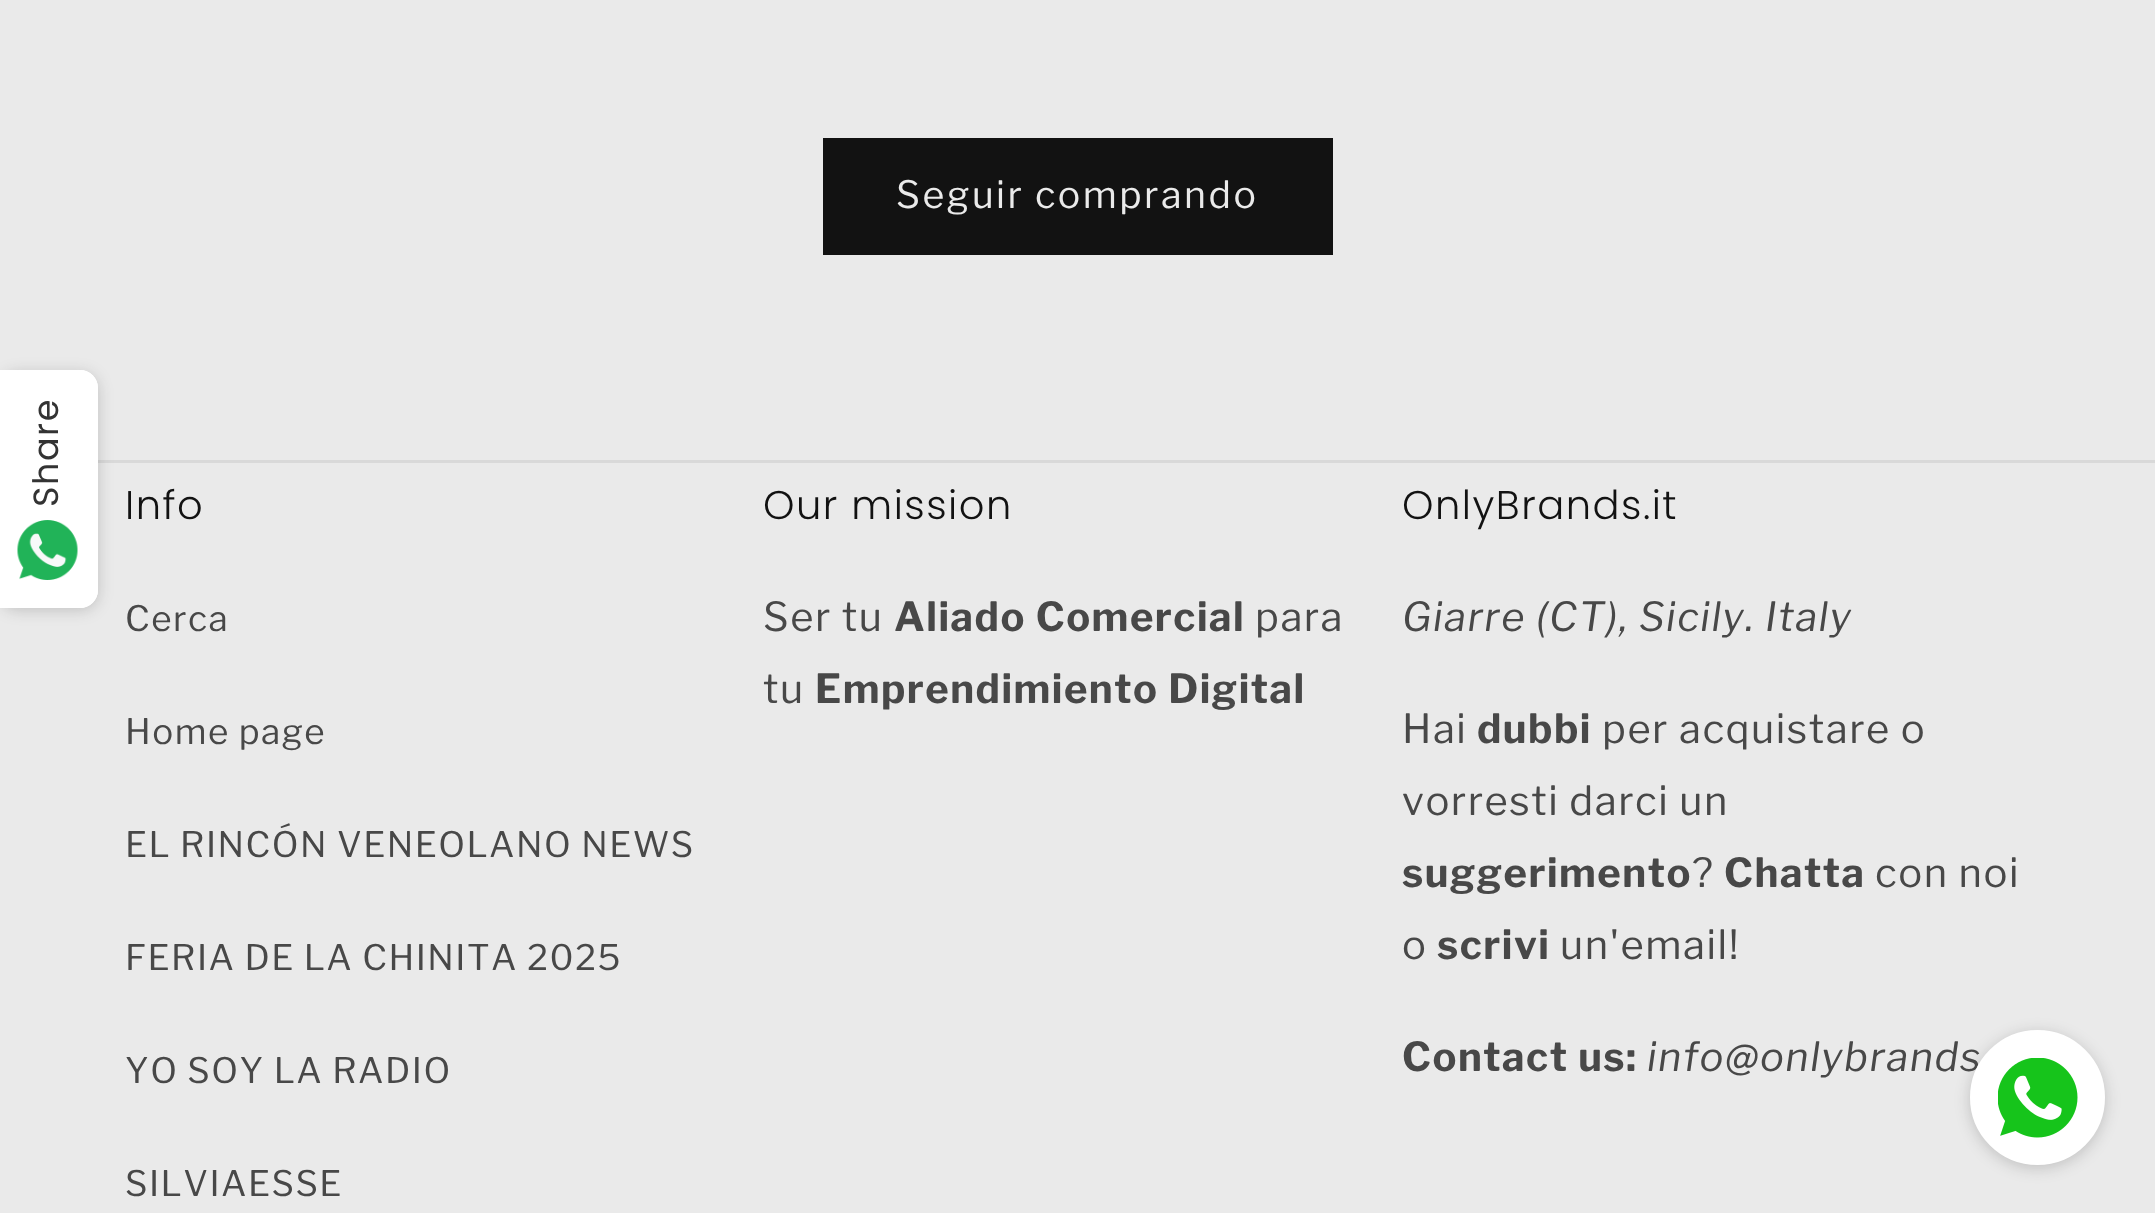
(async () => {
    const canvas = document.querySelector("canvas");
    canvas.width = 2155;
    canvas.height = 1213;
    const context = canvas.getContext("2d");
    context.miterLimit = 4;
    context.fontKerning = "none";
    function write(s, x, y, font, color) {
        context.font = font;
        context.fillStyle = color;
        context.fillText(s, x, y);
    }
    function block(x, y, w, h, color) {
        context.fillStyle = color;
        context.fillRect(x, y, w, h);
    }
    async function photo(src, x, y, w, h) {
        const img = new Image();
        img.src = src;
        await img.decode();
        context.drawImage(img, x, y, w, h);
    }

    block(0, 0, 2155, 1213, "rgb(234, 234, 234)");
    block(823, 138, 510, 117, "rgb(18, 18, 18)");
    context.letterSpacing = "2.5px";
    write("Seguir comprando", 896, 208, "37.5px Libre Franklin", "rgb(234, 234, 234)");
    block(98, 460, 2057, 3, "rgb(217, 217, 217)");
    context.fillStyle = "rgba(27, 27, 27, 0.2)";
    context.filter = "blur(7.5px)";
    context.beginPath();
    context.roundRect(0, 373, 98, 237, 18);
    context.fill();
    context.filter = "none";
    context.fillStyle = "rgb(255, 255, 255)";
    context.beginPath();
    context.roundRect(0, 370, 98, 238, [0, 18, 18, 0]);
    context.fill();
    context.beginPath();
    context.moveTo(0, 370);
    context.lineTo(80, 370);
    context.bezierCurveTo(90, 370, 98, 378, 98, 388);
    context.lineTo(98, 590);
    context.bezierCurveTo(98, 600, 90, 608, 80, 608);
    context.lineTo(0, 608);
    context.closePath();
    context.moveTo(0, 372);
    context.lineTo(80, 372);
    context.bezierCurveTo(88, 372, 95, 379, 95, 388);
    context.lineTo(95, 590);
    context.bezierCurveTo(95, 598, 88, 605, 80, 605);
    context.lineTo(0, 605);
    context.closePath();
    context.fill("evenodd");
    context.letterSpacing = "1.5px";
    context.font = "35px Poppins";
    context.fillStyle = "rgb(51, 51, 51)";
    context.save();
    context.translate(58, 507);
    context.rotate(-90 * Math.PI / 180);
    context.fillText("Share", 0, 0);
    context.restore();
    await photo("media/1.png", 17, 520, 61, 60);
    context.fillStyle = "rgba(27, 27, 27, 0.2)";
    context.filter = "blur(7.5px)";
    context.beginPath();
    context.roundRect(1970, 1033, 135, 135, 67.5);
    context.fill();
    context.filter = "none";
    write("info@onlybrands", 1647, 1071, "italic 40px Libre Franklin", "rgb(72, 72, 72)");
    context.fillStyle = "rgb(255, 255, 255)";
    context.beginPath();
    context.arc(2037.5, 1097.5, 66, 0, Math.PI * 2);
    context.fill();
    context.strokeStyle = "rgb(255, 255, 255)";
    context.lineWidth = 3;
    context.stroke();
    await photo("media/2.png", 1998, 1058, 80, 80);
    write("Info", 125, 519, "300 40px Poppins", "rgb(18, 18, 18)");
    write("Cerca", 125, 631, "35px Libre Franklin", "rgb(72, 72, 72)");
    write("Home page", 125, 744, "35px Libre Franklin", "rgb(72, 72, 72)");
    write("EL RINCÓN VENEOLANO NEWS", 125, 857, "35px Libre Franklin", "rgb(72, 72, 72)");
    write("FERIA DE LA CHINITA 2025", 125, 970, "35px Libre Franklin", "rgb(72, 72, 72)");
    write("YO SOY LA RADIO", 125, 1083, "35px Libre Franklin", "rgb(72, 72, 72)");
    write("SILVIAESSE", 125, 1196, "35px Libre Franklin", "rgb(72, 72, 72)");
    write("Our mission", 763, 519, "300 40px Poppins", "rgb(18, 18, 18)");
    write("Ser tu", 763, 631, "40px Libre Franklin", "rgb(72, 72, 72)");
    write("Aliado Comercial", 894, 631, "bold 40px Libre Franklin", "rgb(72, 72, 72)");
    write("para", 1255, 631, "40px Libre Franklin", "rgb(72, 72, 72)");
    write("tu", 763, 703, "40px Libre Franklin", "rgb(72, 72, 72)");
    write("Emprendimiento Digital", 815, 703, "bold 40px Libre Franklin", "rgb(72, 72, 72)");
    write("OnlyBrands.it", 1402, 519, "300 40px Poppins", "rgb(18, 18, 18)");
    write("Giarre (CT), Sicily. Italy", 1402, 631, "italic 40px Libre Franklin", "rgb(72, 72, 72)");
    write("Hai", 1402, 743, "40px Libre Franklin", "rgb(72, 72, 72)");
    write("dubbi", 1477, 743, "bold 40px Libre Franklin", "rgb(72, 72, 72)");
    write("per acquistare o", 1602, 743, "40px Libre Franklin", "rgb(72, 72, 72)");
    write("vorresti darci un", 1402, 815, "40px Libre Franklin", "rgb(72, 72, 72)");
    write("suggerimento", 1402, 887, "bold 40px Libre Franklin", "rgb(72, 72, 72)");
    write("?", 1692, 887, "40px Libre Franklin", "rgb(72, 72, 72)");
    write("Chatta", 1724, 887, "bold 40px Libre Franklin", "rgb(72, 72, 72)");
    write("con noi", 1875, 887, "40px Libre Franklin", "rgb(72, 72, 72)");
    write("o", 1402, 959, "40px Libre Franklin", "rgb(72, 72, 72)");
    write("scrivi", 1437, 959, "bold 40px Libre Franklin", "rgb(72, 72, 72)");
    write("un'email!", 1560, 959, "40px Libre Franklin", "rgb(72, 72, 72)");
    write("Contact us:", 1402, 1071, "bold 40px Libre Franklin", "rgb(72, 72, 72)");
})();
